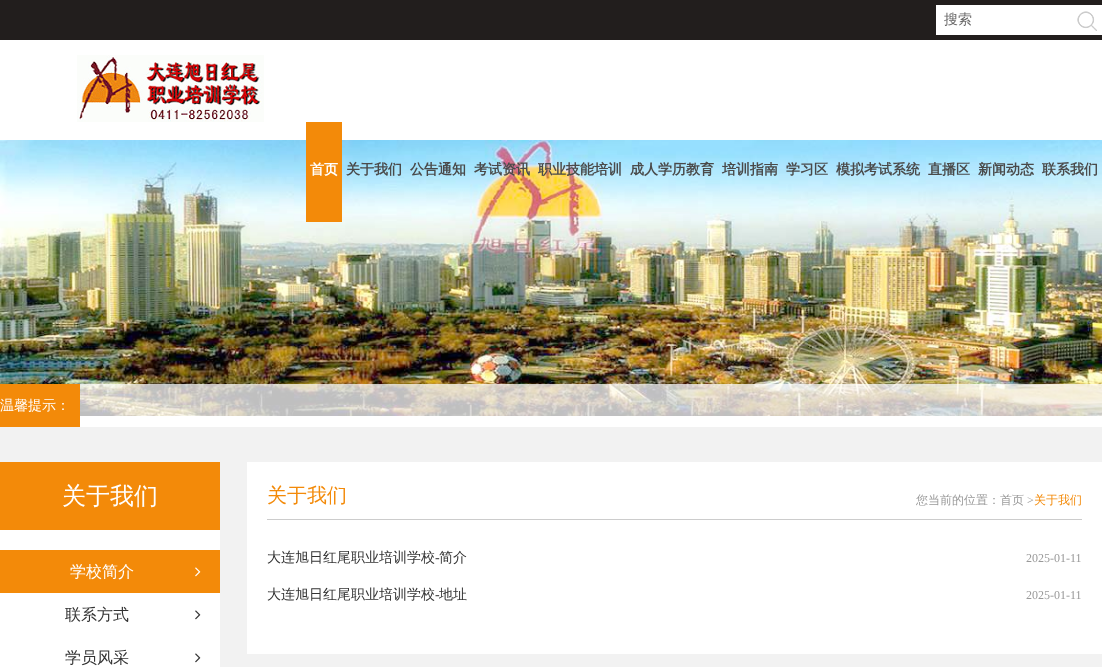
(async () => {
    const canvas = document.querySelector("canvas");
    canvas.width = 1102;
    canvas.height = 667;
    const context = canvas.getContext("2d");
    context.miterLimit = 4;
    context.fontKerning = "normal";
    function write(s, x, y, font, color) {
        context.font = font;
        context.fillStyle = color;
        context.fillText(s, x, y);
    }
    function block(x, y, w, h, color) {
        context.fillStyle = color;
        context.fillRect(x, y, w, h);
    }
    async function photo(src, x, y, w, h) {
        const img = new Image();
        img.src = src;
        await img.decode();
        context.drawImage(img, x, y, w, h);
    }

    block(0, 0, 1102, 667, "rgb(255, 255, 255)");
    block(0, 0, 1102, 40, "rgb(34, 30, 29)");
    block(936, 5, 166, 30, "rgb(255, 255, 255)");
    write("搜索", 944, 24, "500 14px WenQuanYi Zen Hei", "rgb(104, 103, 103)");
    await photo("media/1.png", 1077, 11, 20, 20);
    await photo("media/2.png", 77, 55, 187, 67);
    await photo("media/3.png", 0, 140, 1102, 276);
    block(306, 122, 36, 100, "rgb(243, 138, 9)");
    write("首页", 310, 174, "bold 14px WenQuanYi Zen Hei", "rgb(255, 255, 255)");
    write("关于我们", 346, 174, "bold 14px WenQuanYi Zen Hei", "rgb(74, 74, 74)");
    write("公告通知", 410, 174, "bold 14px WenQuanYi Zen Hei", "rgb(74, 74, 74)");
    write("考试资讯", 474, 174, "bold 14px WenQuanYi Zen Hei", "rgb(74, 74, 74)");
    write("职业技能培训", 538, 174, "bold 14px WenQuanYi Zen Hei", "rgb(74, 74, 74)");
    write("成人学历教育", 630, 174, "bold 14px WenQuanYi Zen Hei", "rgb(74, 74, 74)");
    write("培训指南", 722, 174, "bold 14px WenQuanYi Zen Hei", "rgb(74, 74, 74)");
    write("学习区", 786, 174, "bold 14px WenQuanYi Zen Hei", "rgb(74, 74, 74)");
    write("模拟考试系统", 836, 174, "bold 14px WenQuanYi Zen Hei", "rgb(74, 74, 74)");
    write("直播区", 928, 174, "bold 14px WenQuanYi Zen Hei", "rgb(74, 74, 74)");
    write("新闻动态", 978, 174, "bold 14px WenQuanYi Zen Hei", "rgb(74, 74, 74)");
    write("联系我们", 1042, 174, "bold 14px WenQuanYi Zen Hei", "rgb(74, 74, 74)");
    block(80, 384, 1022, 32, "rgba(255, 255, 255, 0.75)");
    block(0, 384, 80, 43, "rgb(243, 138, 9)");
    write("温馨提示：", 0, 410, "500 14px WenQuanYi Zen Hei", "rgb(255, 255, 255)");
    block(0, 427, 1102, 240, "rgb(242, 242, 242)");
    block(0, 530, 220, 137, "rgb(255, 255, 255)");
    block(0, 462, 220, 68, "rgb(243, 138, 9)");
    write("关于我们", 62, 504, "500 24px WenQuanYi Zen Hei", "rgb(255, 255, 255)");
    block(0, 550, 220, 43, "rgb(243, 138, 9)");
    write("学校简介", 70, 577, "500 16px WenQuanYi Zen Hei", "rgb(255, 255, 255)");
    await photo("media/4.png", 195, 567, 6, 10);
    write("联系方式", 65, 620, "500 16px WenQuanYi Zen Hei", "rgb(51, 51, 51)");
    await photo("media/5.png", 195, 610, 6, 10);
    write("学员风采", 65, 663, "500 16px WenQuanYi Zen Hei", "rgb(51, 51, 51)");
    await photo("media/5.png", 195, 653, 6, 10);
    block(247, 462, 855, 192, "rgb(255, 255, 255)");
    block(267, 519, 815, 1, "rgb(204, 204, 204)");
    write("关于我们", 267, 502, "500 20px WenQuanYi Zen Hei", "rgb(243, 138, 9)");
    write("您当前的位置：首页", 916, 504, "500 12px WenQuanYi Zen Hei", "rgb(153, 153, 153)");
    write(">", 1027, 504, "12px Liberation Serif", "rgb(153, 153, 153)");
    write("关于我们", 1034, 504, "500 12px WenQuanYi Zen Hei", "rgb(243, 138, 9)");
    write("大连旭日红尾职业培训学校", 267, 562, "500 14px WenQuanYi Zen Hei", "rgb(51, 51, 51)");
    write("-", 435, 562, "14px Liberation Serif", "rgb(51, 51, 51)");
    write("简介", 439, 562, "500 14px WenQuanYi Zen Hei", "rgb(51, 51, 51)");
    write("2025-01-11", 1026, 562, "12px Liberation Serif", "rgb(153, 153, 153)");
    write("大连旭日红尾职业培训学校", 267, 599, "500 14px WenQuanYi Zen Hei", "rgb(51, 51, 51)");
    write("-", 435, 599, "14px Liberation Serif", "rgb(51, 51, 51)");
    write("地址", 439, 599, "500 14px WenQuanYi Zen Hei", "rgb(51, 51, 51)");
    write("2025-01-11", 1026, 599, "12px Liberation Serif", "rgb(153, 153, 153)");
})();
